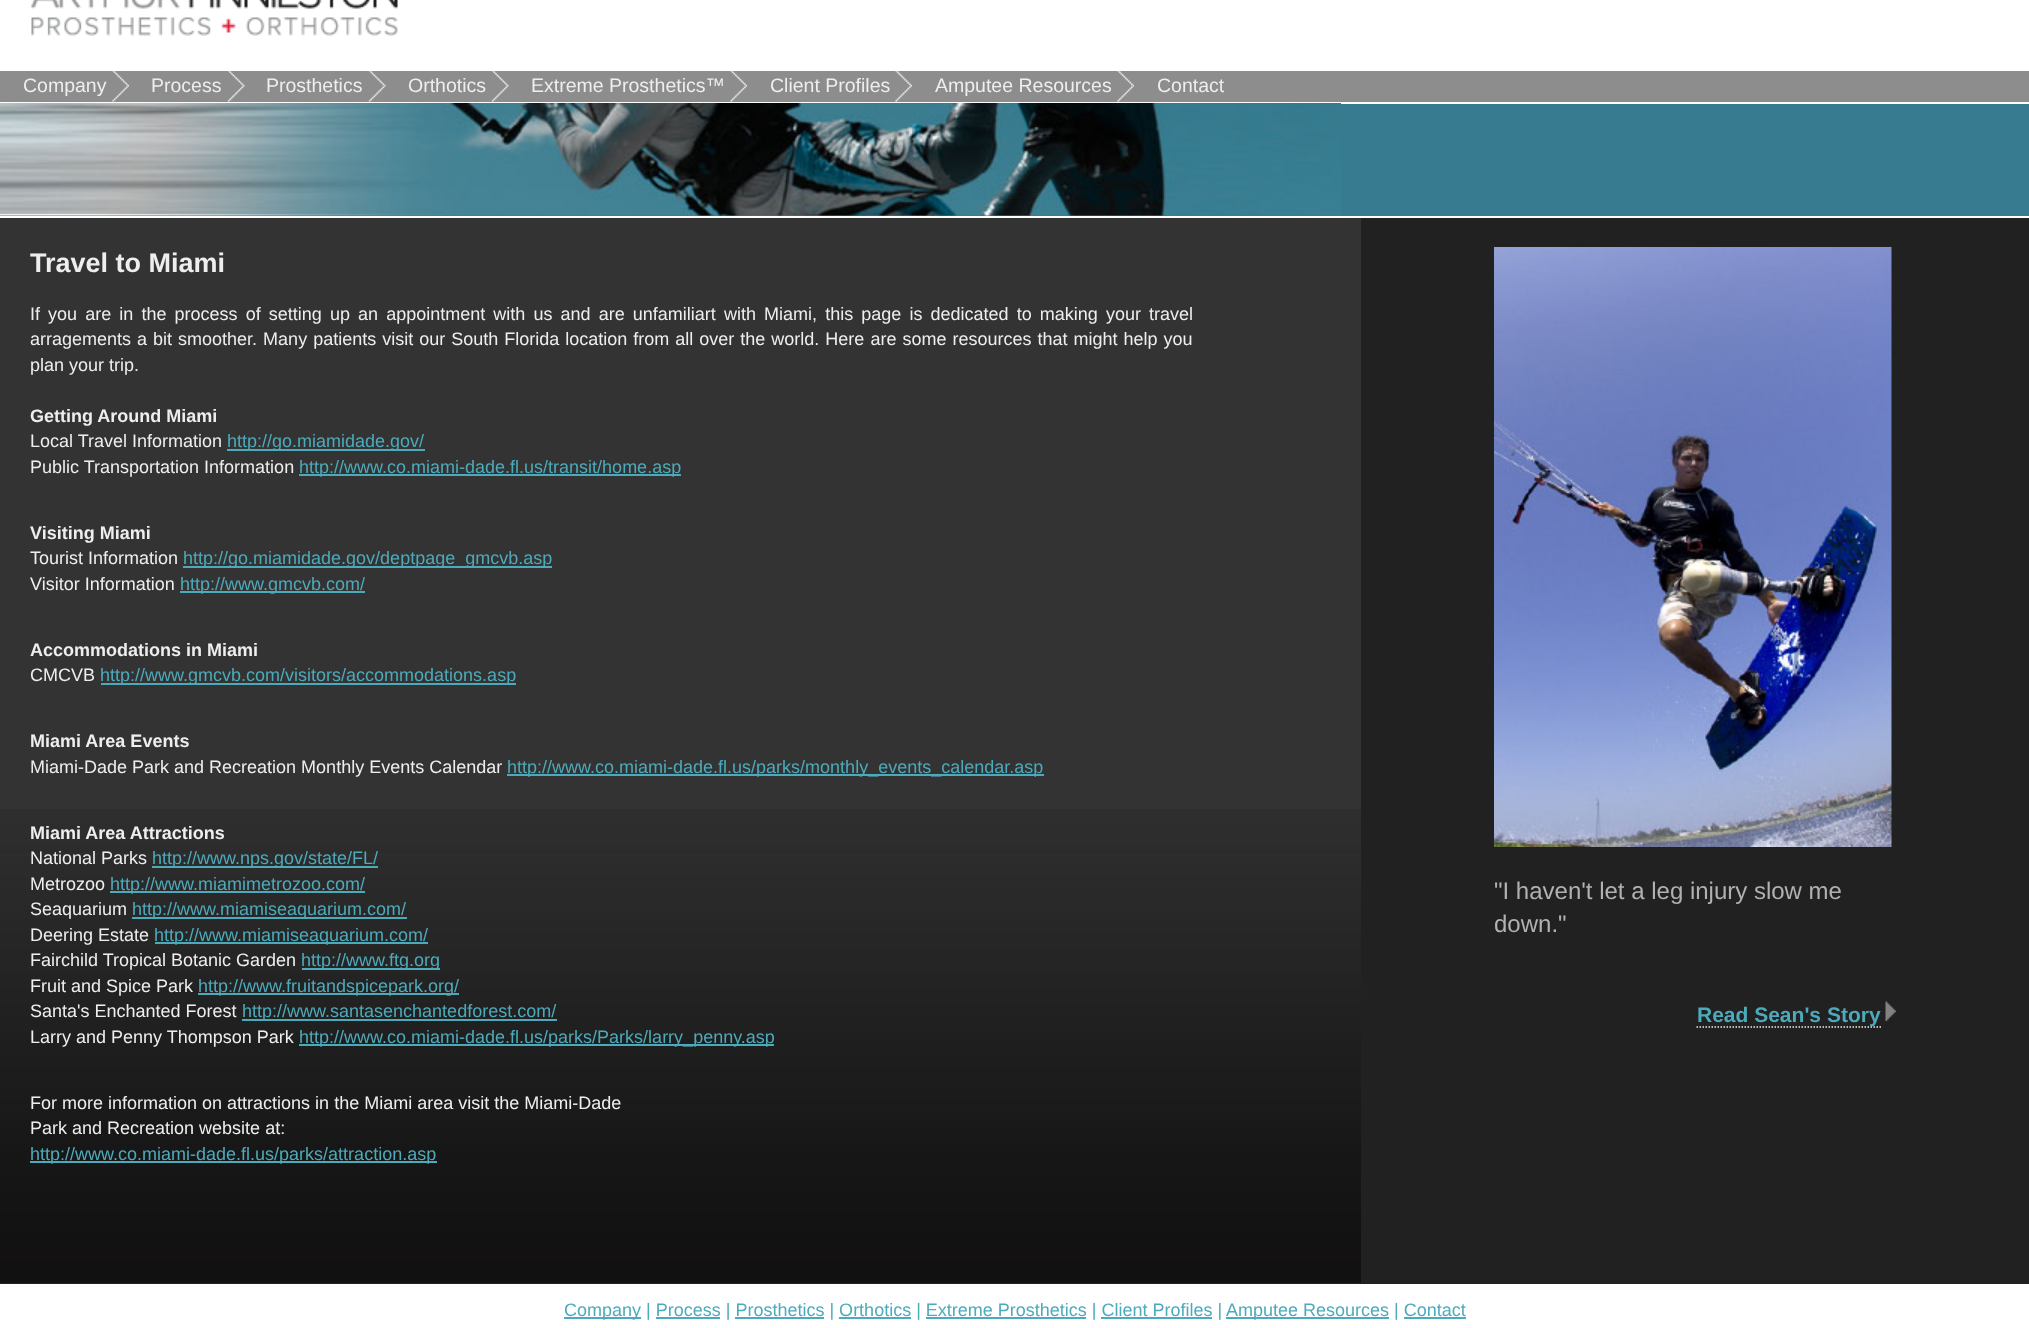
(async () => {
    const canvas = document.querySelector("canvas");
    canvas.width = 2029;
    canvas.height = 1328;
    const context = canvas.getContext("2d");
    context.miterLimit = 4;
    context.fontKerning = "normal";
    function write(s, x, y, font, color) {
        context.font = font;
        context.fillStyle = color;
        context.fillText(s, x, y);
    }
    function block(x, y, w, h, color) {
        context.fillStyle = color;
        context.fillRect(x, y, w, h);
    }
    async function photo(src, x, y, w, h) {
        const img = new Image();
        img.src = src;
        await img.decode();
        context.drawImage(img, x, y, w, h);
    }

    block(0, 0, 2029, 1328, "rgb(255, 255, 255)");
    await photo("media/1.png", 30, 0, 368, 36);
    block(0, 71, 2029, 31, "rgb(141, 141, 141)");
    await photo("media/2.png", 112, 71, 17, 31);
    write("Company", 23, 92, "19.5px Liberation Sans", "rgb(238, 238, 238)");
    await photo("media/3.png", 227, 71, 18, 31);
    write("Process", 151, 92, "19.5px Liberation Sans", "rgb(238, 238, 238)");
    await photo("media/4.png", 368, 71, 18, 31);
    write("Prosthetics", 266, 92, "19.5px Liberation Sans", "rgb(238, 238, 238)");
    await photo("media/4.png", 491, 71, 18, 31);
    write("Orthotics", 408, 92, "19.5px Liberation Sans", "rgb(238, 238, 238)");
    await photo("media/5.png", 730, 71, 17, 31);
    write("Extreme Prosthetics™", 531, 92, "19.5px Liberation Sans", "rgb(238, 238, 238)");
    await photo("media/2.png", 895, 71, 17, 31);
    write("Client Profiles", 770, 92, "19.5px Liberation Sans", "rgb(238, 238, 238)");
    await photo("media/5.png", 1117, 71, 17, 31);
    write("Amputee Resources", 935, 92, "19.5px Liberation Sans", "rgb(238, 238, 238)");
    write("Contact", 1157, 92, "19.5px Liberation Sans", "rgb(238, 238, 238)");
    block(0, 104, 2029, 112, "rgb(54, 123, 143)");
    await photo("media/6.png", 0, 103, 1341, 113);
    block(0, 218, 1361, 1066, "rgb(51, 51, 51)");
    await photo("media/7.png", 0, 809, 1361, 475);
    write("Travel to Miami", 30, 272, "bold 27px Liberation Sans", "rgb(238, 238, 238)");
    context.wordSpacing = "3.1px";
    write("If you are in the process of setting up an appointment with us and are unfamiliart with Miami, this page is dedicated to making your travel", 30, 320, "18px Liberation Sans", "rgb(238, 238, 238)");
    context.wordSpacing = "1px";
    write("arragements a bit smoother. Many patients visit our South Florida location from all over the world. Here are some resources that might help you", 30, 345, "18px Liberation Sans", "rgb(238, 238, 238)");
    context.wordSpacing = "0px";
    write("plan your trip.", 30, 371, "18px Liberation Sans", "rgb(238, 238, 238)");
    write("Getting Around Miami", 30, 422, "bold 18px Liberation Sans", "rgb(238, 238, 238)");
    write("Local Travel Information", 30, 447, "18px Liberation Sans", "rgb(238, 238, 238)");
    block(227, 449, 198, 2, "rgb(77, 170, 187)");
    write("http://go.miamidade.gov/", 227, 447, "18px Liberation Sans", "rgb(77, 170, 187)");
    write("Public Transportation Information", 30, 473, "18px Liberation Sans", "rgb(238, 238, 238)");
    block(299, 474, 382, 2, "rgb(77, 170, 187)");
    write("http://www.co.miami-dade.fl.us/transit/home.asp", 299, 473, "18px Liberation Sans", "rgb(77, 170, 187)");
    write("Visiting Miami", 30, 539, "bold 18px Liberation Sans", "rgb(238, 238, 238)");
    write("Tourist Information", 30, 564, "18px Liberation Sans", "rgb(238, 238, 238)");
    block(183, 566, 369, 2, "rgb(77, 170, 187)");
    write("http://go.miamidade.gov/deptpage_gmcvb.asp", 183, 564, "18px Liberation Sans", "rgb(77, 170, 187)");
    write("Visitor Information", 30, 590, "18px Liberation Sans", "rgb(238, 238, 238)");
    block(180, 591, 185, 2, "rgb(77, 170, 187)");
    write("http://www.gmcvb.com/", 180, 590, "18px Liberation Sans", "rgb(77, 170, 187)");
    write("Accommodations in Miami", 30, 656, "bold 18px Liberation Sans", "rgb(238, 238, 238)");
    write("CMCVB", 30, 681, "18px Liberation Sans", "rgb(238, 238, 238)");
    block(101, 683, 415, 2, "rgb(77, 170, 187)");
    write("http://www.gmcvb.com/visitors/accommodations.asp", 100, 681, "18px Liberation Sans", "rgb(77, 170, 187)");
    write("Miami Area Events", 30, 747, "bold 18px Liberation Sans", "rgb(238, 238, 238)");
    write("Miami-Dade Park and Recreation Monthly Events Calendar", 30, 773, "18px Liberation Sans", "rgb(238, 238, 238)");
    block(507, 774, 537, 2, "rgb(77, 170, 187)");
    write("http://www.co.miami-dade.fl.us/parks/monthly_events_calendar.asp", 507, 773, "18px Liberation Sans", "rgb(77, 170, 187)");
    write("Miami Area Attractions", 30, 839, "bold 18px Liberation Sans", "rgb(238, 238, 238)");
    write("National Parks", 30, 864, "18px Liberation Sans", "rgb(238, 238, 238)");
    block(152, 866, 226, 2, "rgb(77, 170, 187)");
    write("http://www.nps.gov/state/FL/", 152, 864, "18px Liberation Sans", "rgb(77, 170, 187)");
    write("Metrozoo", 30, 890, "18px Liberation Sans", "rgb(238, 238, 238)");
    block(110, 891, 255, 2, "rgb(77, 170, 187)");
    write("http://www.miamimetrozoo.com/", 110, 890, "18px Liberation Sans", "rgb(77, 170, 187)");
    write("Seaquarium", 30, 915, "18px Liberation Sans", "rgb(238, 238, 238)");
    block(132, 917, 275, 2, "rgb(77, 170, 187)");
    write("http://www.miamiseaquarium.com/", 132, 915, "18px Liberation Sans", "rgb(77, 170, 187)");
    write("Deering Estate", 30, 941, "18px Liberation Sans", "rgb(238, 238, 238)");
    block(155, 942, 273, 2, "rgb(77, 170, 187)");
    write("http://www.miamiseaquarium.com/", 154, 941, "18px Liberation Sans", "rgb(77, 170, 187)");
    write("Fairchild Tropical Botanic Garden", 30, 966, "18px Liberation Sans", "rgb(238, 238, 238)");
    block(302, 968, 138, 2, "rgb(77, 170, 187)");
    write("http://www.ftg.org", 301, 966, "18px Liberation Sans", "rgb(77, 170, 187)");
    write("Fruit and Spice Park", 30, 992, "18px Liberation Sans", "rgb(238, 238, 238)");
    block(198, 993, 261, 2, "rgb(77, 170, 187)");
    write("http://www.fruitandspicepark.org/", 198, 992, "18px Liberation Sans", "rgb(77, 170, 187)");
    write("Santa's Enchanted Forest", 30, 1017, "18px Liberation Sans", "rgb(238, 238, 238)");
    block(242, 1019, 315, 2, "rgb(77, 170, 187)");
    write("http://www.santasenchantedforest.com/", 242, 1017, "18px Liberation Sans", "rgb(77, 170, 187)");
    write("Larry and Penny Thompson Park", 30, 1043, "18px Liberation Sans", "rgb(238, 238, 238)");
    block(299, 1044, 475, 2, "rgb(77, 170, 187)");
    write("http://www.co.miami-dade.fl.us/parks/Parks/larry_penny.asp", 299, 1043, "18px Liberation Sans", "rgb(77, 170, 187)");
    write("For more information on attractions in the Miami area visit the Miami-Dade", 30, 1109, "18px Liberation Sans", "rgb(238, 238, 238)");
    write("Park and Recreation website at:", 30, 1134, "18px Liberation Sans", "rgb(238, 238, 238)");
    block(30, 1161, 407, 2, "rgb(77, 170, 187)");
    write("http://www.co.miami-dade.fl.us/parks/attraction.asp", 30, 1160, "18px Liberation Sans", "rgb(77, 170, 187)");
    block(1361, 218, 668, 1066, "rgb(33, 33, 33)");
    await photo("media/8.png", 1494, 247, 398, 600);
    write("\"I haven't let a leg injury slow me", 1494, 899, "24px Liberation Sans", "rgb(177, 177, 177)");
    write("down.\"", 1494, 932, "24px Liberation Sans", "rgb(177, 177, 177)");
    context.beginPath();
    context.moveTo(1696.5, 1027);
    context.lineTo(1881, 1027);
    context.strokeStyle = "rgb(238, 238, 238)";
    context.lineWidth = 1.5;
    context.setLineDash([1.5, 1.5]);
    context.stroke();
    write("Read Sean's Story", 1697, 1022, "bold 21px Liberation Sans", "rgb(77, 170, 187)");
    await photo("media/9.png", 1885, 1001, 11, 20);
    block(564, 1317, 77, 2, "rgb(77, 170, 187)");
    write("Company | Process | Prosthetics | Orthotics | Extreme Prosthetics | Client Profiles |", 564, 1316, "18px Liberation Sans", "rgb(77, 170, 187)");
    block(1226, 1317, 163, 2, "rgb(77, 170, 187)");
    write("Amputee Resources | Contact", 1226, 1316, "18px Liberation Sans", "rgb(77, 170, 187)");
    block(656, 1317, 64, 2, "rgb(77, 170, 187)");
    block(735, 1317, 89, 2, "rgb(77, 170, 187)");
    block(839, 1317, 72, 2, "rgb(77, 170, 187)");
    block(926, 1317, 160, 2, "rgb(77, 170, 187)");
    block(1101, 1317, 111, 2, "rgb(77, 170, 187)");
    block(1404, 1317, 62, 2, "rgb(77, 170, 187)");
})();
